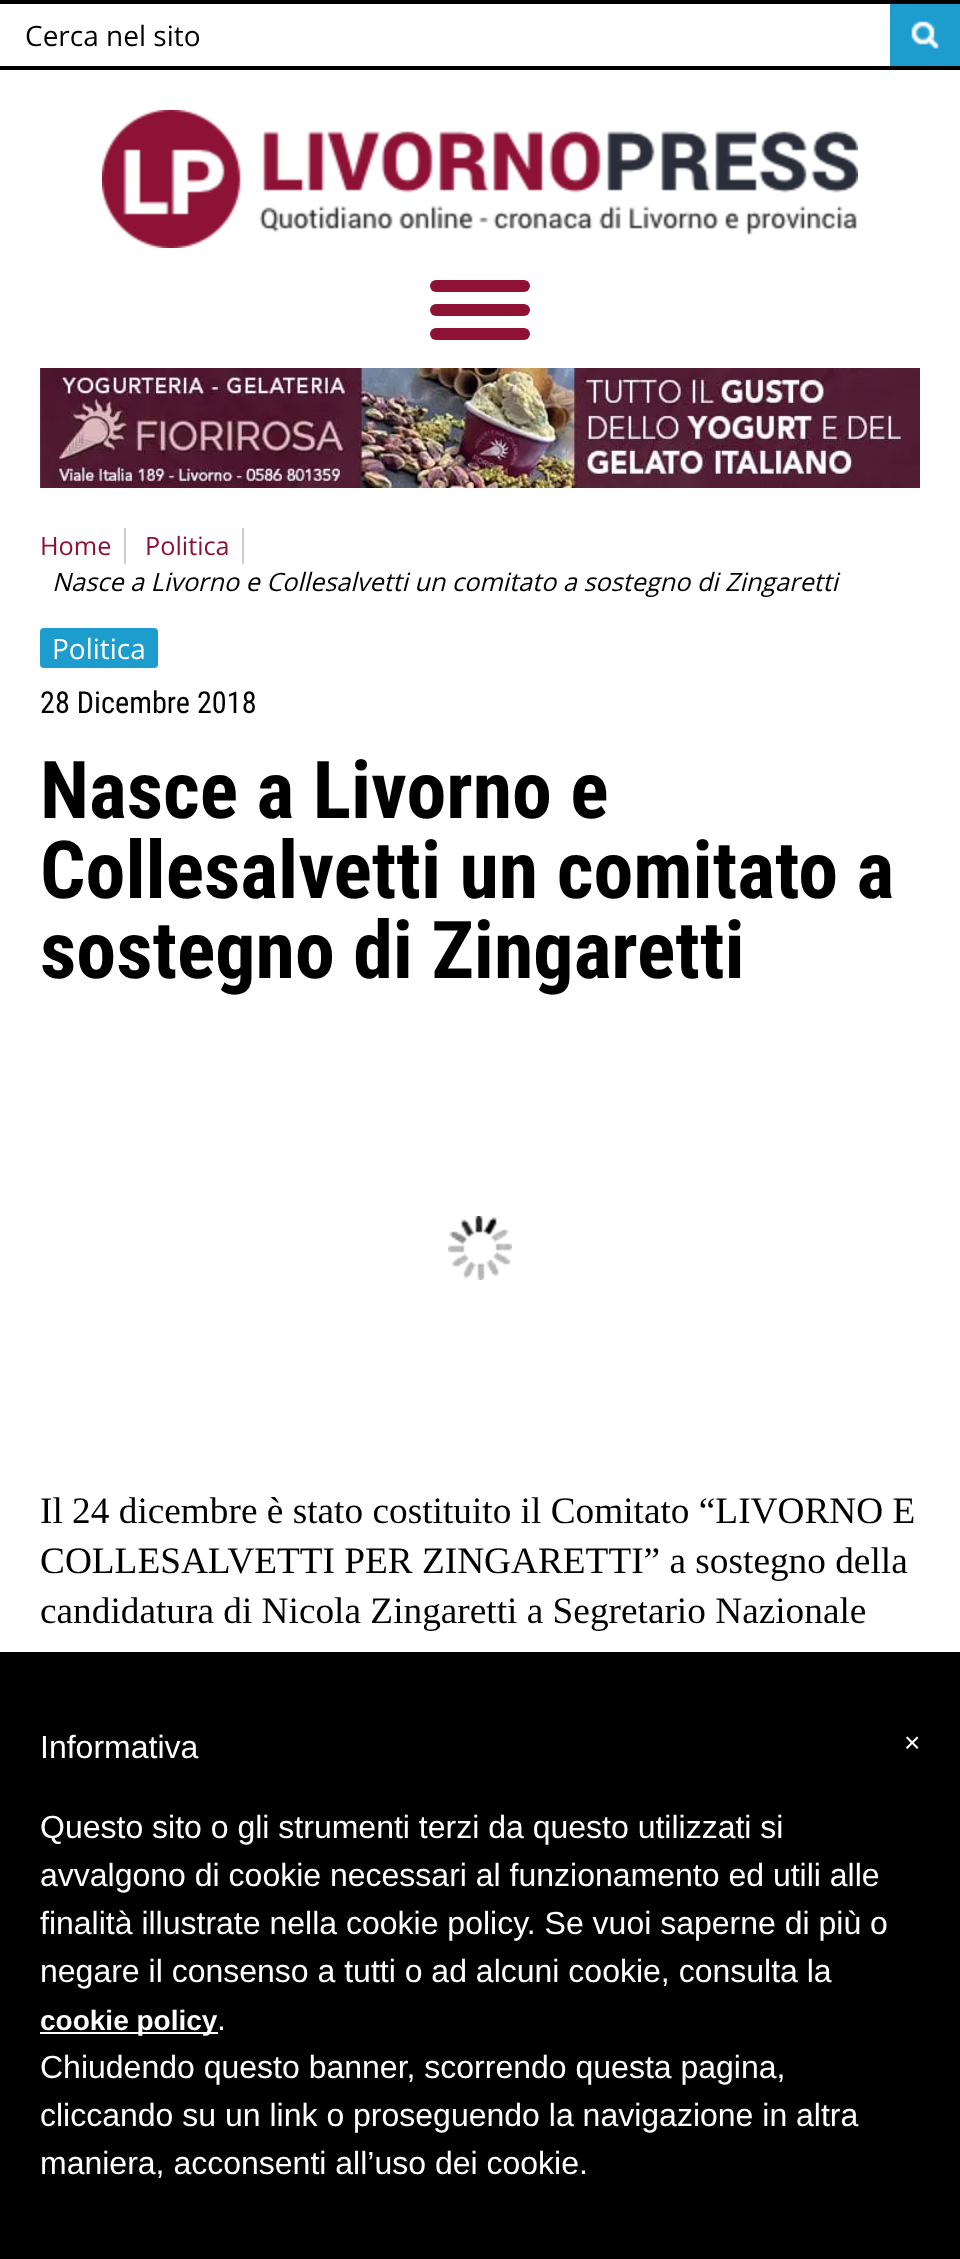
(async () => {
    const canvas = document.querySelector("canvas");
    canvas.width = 960;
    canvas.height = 2259;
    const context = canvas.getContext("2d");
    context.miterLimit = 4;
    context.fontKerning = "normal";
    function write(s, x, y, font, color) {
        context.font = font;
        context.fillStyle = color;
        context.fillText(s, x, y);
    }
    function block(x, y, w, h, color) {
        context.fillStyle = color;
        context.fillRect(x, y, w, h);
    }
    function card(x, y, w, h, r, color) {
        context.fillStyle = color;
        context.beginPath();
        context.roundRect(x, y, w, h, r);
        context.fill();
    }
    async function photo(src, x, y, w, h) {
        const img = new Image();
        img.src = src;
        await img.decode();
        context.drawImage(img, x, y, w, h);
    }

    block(0, 0, 960, 2259, "rgb(255, 255, 255)");
    block(0, 0, 960, 4, "rgb(0, 0, 0)");
    block(0, 66, 960, 4, "rgb(0, 0, 0)");
    write("Cerca nel sito", 25, 46, "28px Open Sans", "rgb(0, 0, 0)");
    block(890, 4, 70, 62, "rgb(29, 156, 206)");
    await photo("media/1.png", 911, 21, 28, 28);
    await photo("media/2.png", 102, 110, 756, 138);
    await photo("media/3.png", 40, 368, 880, 120);
    card(430, 280, 100, 12, 6, "rgb(141, 18, 54)");
    card(430, 304, 100, 12, 6, "rgb(141, 18, 54)");
    card(430, 328, 100, 12, 6, "rgb(141, 18, 54)");
    block(124, 528, 2, 36, "rgb(204, 204, 204)");
    write("Home", 40, 555, "25.25px Open Sans", "rgb(141, 18, 54)");
    block(242, 528, 2, 36, "rgb(204, 204, 204)");
    write("Politica", 145, 555, "25.25px Open Sans", "rgb(141, 18, 54)");
    write("Nasce a Livorno e Collesalvetti un comitato a sostegno di Zingaretti", 52, 591, "italic 25.25px Open Sans", "rgb(0, 0, 0)");
    card(40, 628, 118, 40, 4, "rgb(29, 156, 206)");
    write("Politica", 52, 659, "28px Open Sans", "rgb(255, 255, 255)");
    write("28 Dicembre 2018", 40, 713, "30.25px Roboto Condensed", "rgb(0, 0, 0)");
    write("Nasce a Livorno e", 40, 818, "bold 80px Roboto Condensed", "rgb(0, 0, 0)");
    write("Collesalvetti un comitato a", 40, 898, "bold 80px Roboto Condensed", "rgb(0, 0, 0)");
    write("sostegno di Zingaretti", 40, 978, "bold 80px Roboto Condensed", "rgb(0, 0, 0)");
    await photo("media/4.png", 448, 1216, 64, 64);
    write("Il 24 dicembre è stato costituito il Comitato “LIVORNO E", 40, 1523, "37.3px Liberation Serif", "rgb(0, 0, 0)");
    write("COLLESALVETTI PER ZINGARETTI” a sostegno della", 40, 1573, "37.3px Liberation Serif", "rgb(0, 0, 0)");
    write("candidatura di Nicola Zingaretti a Segretario Nazionale", 40, 1623, "37.3px Liberation Serif", "rgb(0, 0, 0)");
    block(0, 1652, 960, 607, "rgb(0, 0, 0)");
    write("Informativa", 40, 1758, "32px Liberation Sans", "rgb(255, 255, 255)");
    write("Questo sito o gli strumenti terzi da questo utilizzati si", 40, 1838, "32px Liberation Sans", "rgb(255, 255, 255)");
    write("avvalgono di cookie necessari al funzionamento ed utili alle", 40, 1886, "32px Liberation Sans", "rgb(255, 255, 255)");
    write("finalità illustrate nella cookie policy. Se vuoi saperne di più o", 40, 1934, "32px Liberation Sans", "rgb(255, 255, 255)");
    write("negare il consenso a tutti o ad alcuni cookie, consulta la", 40, 1982, "32px Liberation Sans", "rgb(255, 255, 255)");
    block(40, 2032, 178, 2, "rgb(255, 255, 255)");
    write("cookie policy", 40, 2030, "bold 28px Liberation Sans", "rgb(255, 255, 255)");
    write(".", 217, 2030, "32px Liberation Sans", "rgb(255, 255, 255)");
    write("Chiudendo questo banner, scorrendo questa pagina,", 40, 2078, "32px Liberation Sans", "rgb(255, 255, 255)");
    write("cliccando su un link o proseguendo la navigazione in altra", 40, 2126, "32px Liberation Sans", "rgb(255, 255, 255)");
    write("maniera, acconsenti all’uso dei cookie.", 40, 2174, "32px Liberation Sans", "rgb(255, 255, 255)");
    write("×", 904, 1752, "28px Liberation Sans", "rgb(255, 255, 255)");
})();
